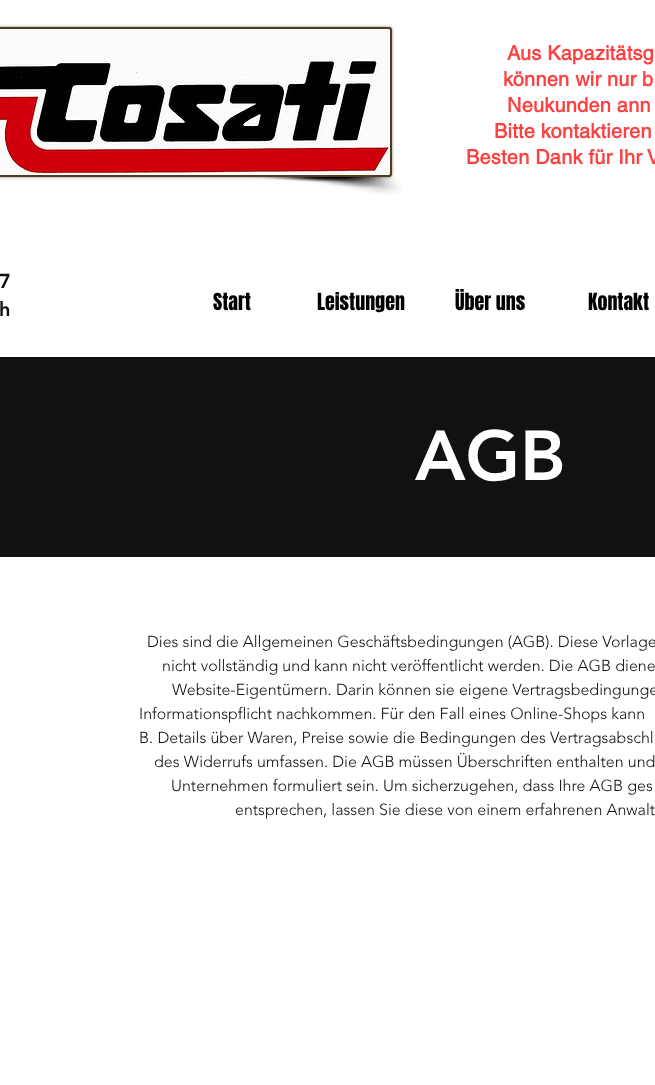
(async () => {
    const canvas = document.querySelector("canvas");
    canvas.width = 655;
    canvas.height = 1085;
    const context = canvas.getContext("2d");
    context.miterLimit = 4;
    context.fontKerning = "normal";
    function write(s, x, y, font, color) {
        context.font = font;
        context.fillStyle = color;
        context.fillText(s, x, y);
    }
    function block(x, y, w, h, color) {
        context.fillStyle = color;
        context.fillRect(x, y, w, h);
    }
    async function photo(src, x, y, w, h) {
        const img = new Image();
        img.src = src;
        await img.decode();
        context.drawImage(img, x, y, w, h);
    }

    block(0, 0, 655, 1085, "rgb(255, 255, 255)");
    context.fillStyle = "rgba(0, 0, 0, 0.5)";
    context.filter = "blur(1.5px)";
    context.beginPath();
    context.roundRect(-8, 27, 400, 150, 3);
    context.fill();
    context.filter = "none";
    context.fillStyle = "rgb(80, 61, 27)";
    context.beginPath();
    context.roundRect(-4, 28, 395, 148, 2);
    context.fill();
    context.strokeStyle = "rgb(80, 61, 27)";
    context.lineWidth = 2;
    context.stroke();
    await photo("media/1.png", 0, 29, 390, 146);
    await photo("media/2.png", 247, 177, 154, 18);
    context.letterSpacing = "0.2px";
    write("Aus Kapazitätsg", 507, 60, "bold 20px helvetica", "rgb(255, 64, 64)");
    write("können wir nur b", 503, 86, "bold 20px helvetica", "rgb(255, 64, 64)");
    write("Neukunden ann", 507, 112, "bold 20px helvetica", "rgb(255, 64, 64)");
    write("Bitte kontaktieren", 494, 138, "bold 20px helvetica", "rgb(255, 64, 64)");
    write("Besten Dank für Ihr V", 466, 164, "bold 20px helvetica", "rgb(255, 64, 64)");
    context.letterSpacing = "1px";
    write("7", -1, 288, "900 20px 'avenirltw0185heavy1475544'", "rgb(17, 17, 17)");
    write("h", -1, 316, "900 20px 'avenirltw0185heavy1475544'", "rgb(17, 17, 17)");
    context.letterSpacing = "0px";
    write("Start", 213, 310, "20px Anton", "rgb(0, 0, 0)");
    write("Leistungen", 317, 310, "20px Anton", "rgb(0, 0, 0)");
    write("Über uns", 455, 310, "20px Anton", "rgb(0, 0, 0)");
    write("Kontakt", 588, 310, "20px Anton", "rgb(0, 0, 0)");
    block(0, 357, 655, 200, "rgb(17, 17, 17)");
    write("AGB", 415, 480, "900 70px 'avenirltw0185heavy1475544'", "rgb(255, 255, 255)");
    write("Dies sind die Allgemeinen Geschäftsbedingungen (AGB). Diese Vorlage", 147, 647, "300 16px 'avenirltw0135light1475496'", "rgb(17, 17, 17)");
    write("nicht vollständig und kann nicht veröffentlicht werden. Die AGB diene", 162, 671, "300 16px 'avenirltw0135light1475496'", "rgb(17, 17, 17)");
    write("Website-Eigentümern. Darin können sie eigene Vertragsbedingunge", 172, 695, "300 16px 'avenirltw0135light1475496'", "rgb(17, 17, 17)");
    write("Informationspflicht nachkommen. Für den Fall eines Online-Shops kann", 139, 719, "300 16px 'avenirltw0135light1475496'", "rgb(17, 17, 17)");
    write("B. Details über Waren, Preise sowie die Bedingungen des Vertragsabschl", 139, 743, "300 16px 'avenirltw0135light1475496'", "rgb(17, 17, 17)");
    write("des Widerrufs umfassen. Die AGB müssen Überschriften enthalten und", 154, 767, "300 16px 'avenirltw0135light1475496'", "rgb(17, 17, 17)");
    write("Unternehmen formuliert sein. Um sicherzugehen, dass Ihre AGB ges", 171, 791, "300 16px 'avenirltw0135light1475496'", "rgb(17, 17, 17)");
    write("entsprechen, lassen Sie diese von einem erfahrenen Anwalt", 235, 815, "300 16px 'avenirltw0135light1475496'", "rgb(17, 17, 17)");
})();
